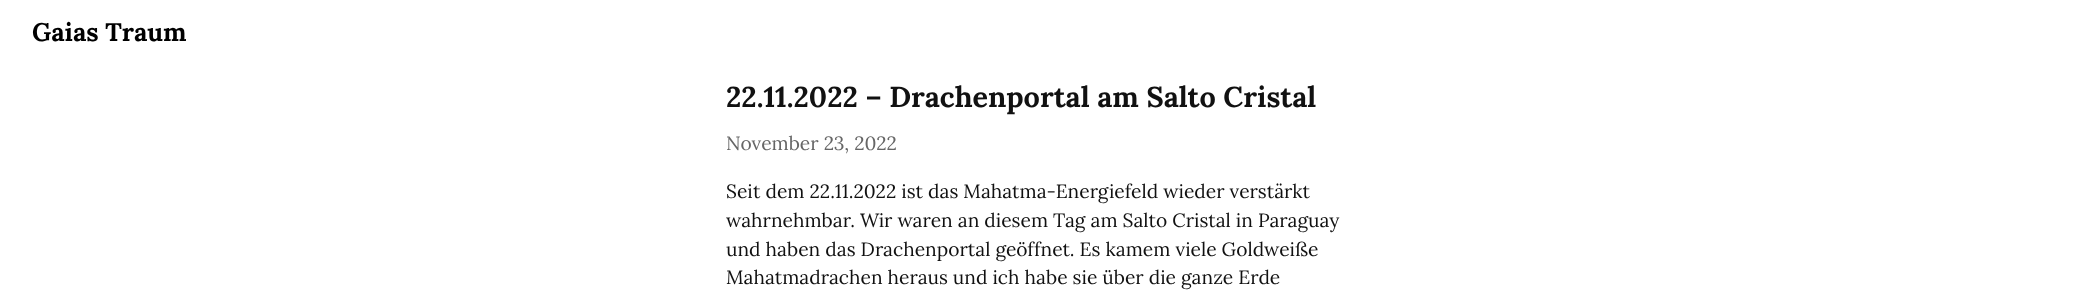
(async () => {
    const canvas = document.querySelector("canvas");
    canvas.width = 2091;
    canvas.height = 305;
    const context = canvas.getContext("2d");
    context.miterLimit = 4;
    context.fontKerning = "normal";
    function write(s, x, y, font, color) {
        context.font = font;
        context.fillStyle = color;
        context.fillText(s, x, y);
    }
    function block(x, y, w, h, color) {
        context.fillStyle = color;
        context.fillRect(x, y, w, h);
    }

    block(0, 0, 2091, 305, "rgb(255, 255, 255)");
    write("Gaias Traum", 32, 41, "bold 25.5px Lora", "rgb(0, 0, 0)");
    write("22.11.2022 – Drachenportal am Salto Cristal", 726, 107, "bold 28.8px Lora", "rgb(17, 17, 17)");
    write("November 23, 2022", 726, 150, "19.2px Lora", "rgb(102, 102, 102)");
    write("Seit dem 22.11.2022 ist das Mahatma-Energiefeld wieder verstärkt", 726, 198, "19.2px Lora", "rgb(17, 17, 17)");
    write("wahrnehmbar. Wir waren an diesem Tag am Salto Cristal in Paraguay", 726, 227, "19.2px Lora", "rgb(17, 17, 17)");
    write("und haben das Drachenportal geöffnet. Es kamem viele Goldweiße", 726, 256, "19.2px Lora", "rgb(17, 17, 17)");
    write("Mahatmadrachen heraus und ich habe sie über die ganze Erde", 726, 284, "19.2px Lora", "rgb(17, 17, 17)");
})();
